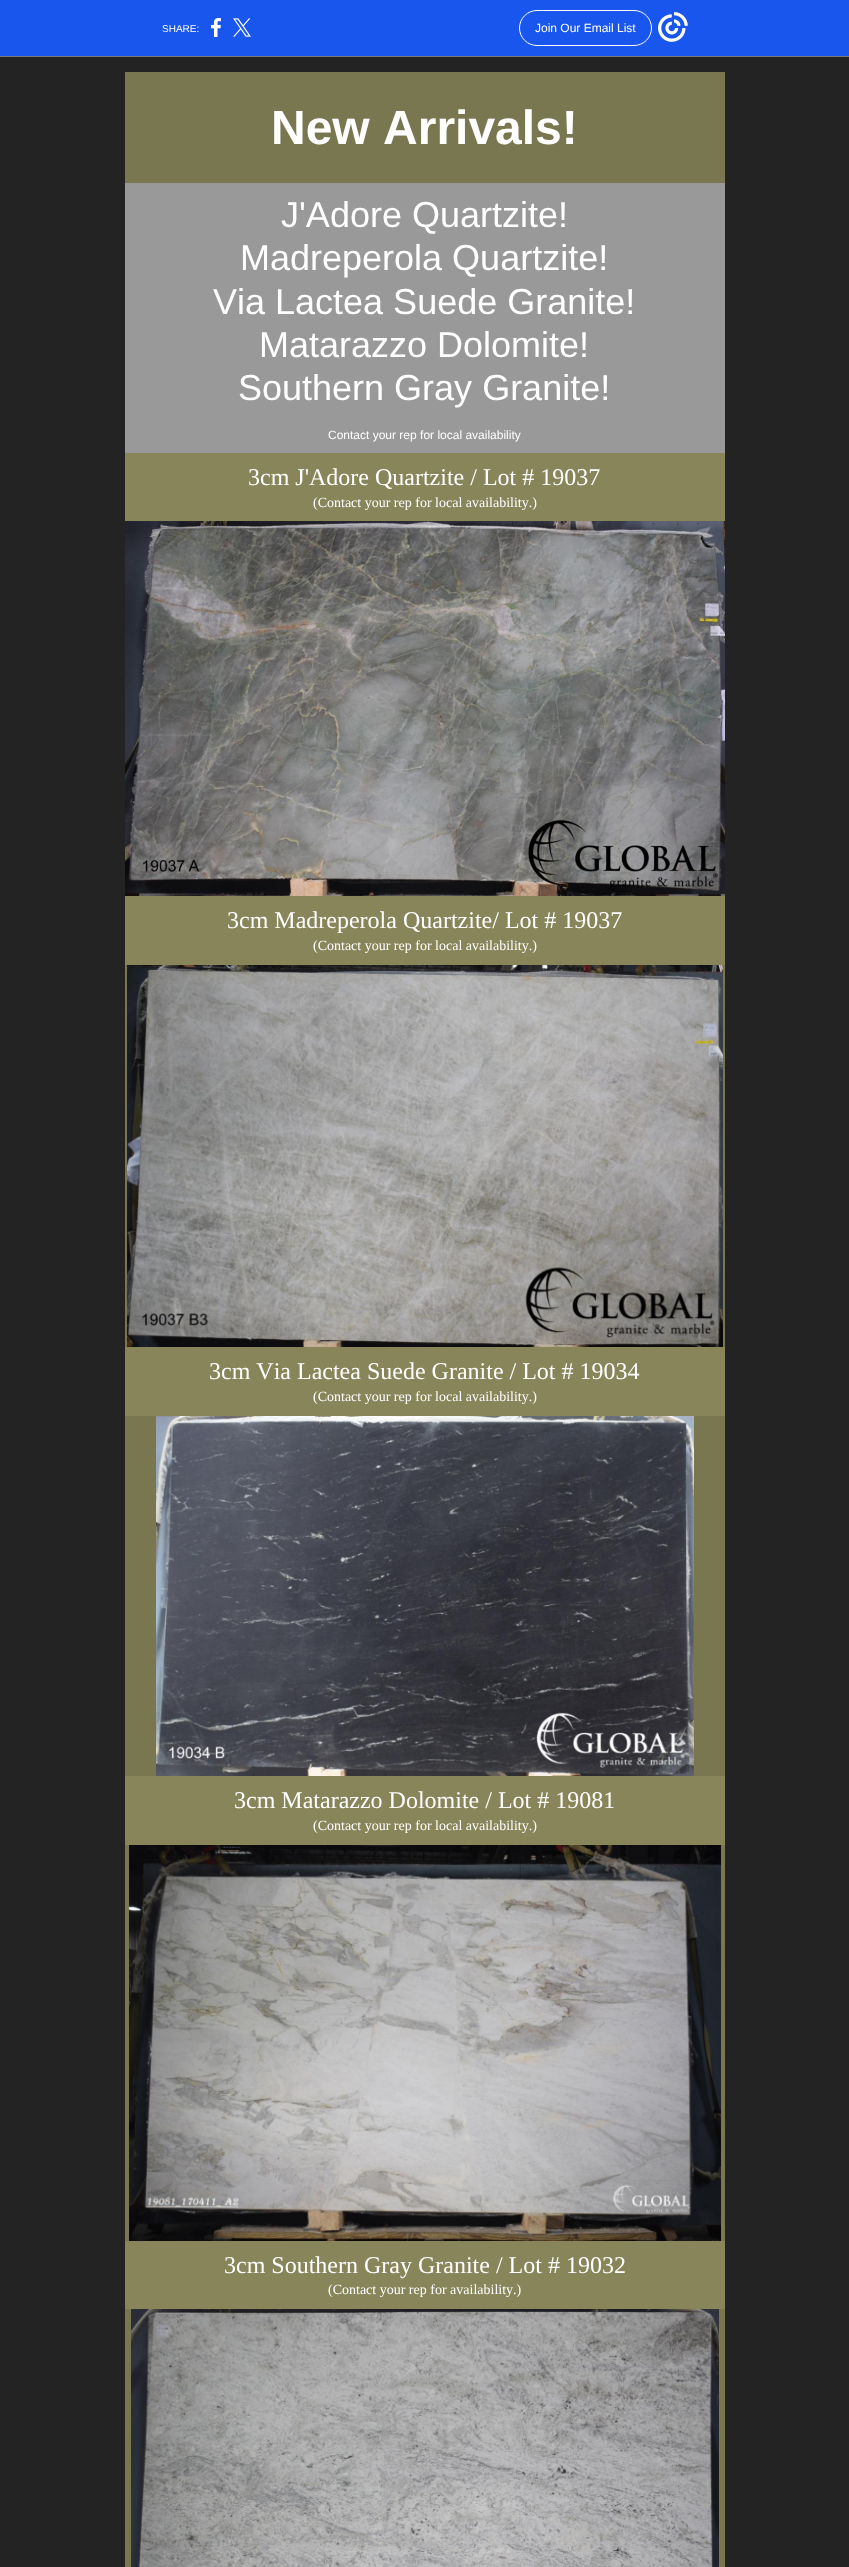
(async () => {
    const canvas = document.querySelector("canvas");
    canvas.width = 849;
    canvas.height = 2567;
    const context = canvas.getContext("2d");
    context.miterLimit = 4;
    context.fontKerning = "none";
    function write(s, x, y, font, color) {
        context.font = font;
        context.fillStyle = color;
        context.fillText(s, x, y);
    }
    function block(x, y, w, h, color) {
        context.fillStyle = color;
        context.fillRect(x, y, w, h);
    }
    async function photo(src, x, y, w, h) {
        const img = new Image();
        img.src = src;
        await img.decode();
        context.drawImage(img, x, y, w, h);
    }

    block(0, 0, 849, 2567, "rgb(35, 35, 35)");
    block(0, 0, 849, 56, "rgb(24, 86, 237)");
    block(0, 56, 849, 1, "rgb(122, 122, 122)");
    write("SHARE:", 162, 32, "10px Liberation Sans", "rgb(255, 255, 255)");
    await photo("media/1.png", 211, 18, 10, 19);
    await photo("media/2.png", 233, 18, 18, 19);
    context.beginPath();
    context.roundRect(519.5, 10.5, 132, 35, 17.5);
    context.strokeStyle = "rgb(255, 255, 255)";
    context.stroke();
    write("Join Our Email List", 535, 32, "12px Liberation Sans", "rgb(255, 255, 255)");
    await photo("media/3.png", 658, 12, 30, 30);
    block(125, 72, 600, 111, "rgb(121, 119, 80)");
    write("New Arrivals!", 271, 144, "bold 48px Liberation Sans", "rgb(255, 255, 255)");
    block(125, 183, 600, 270, "rgb(153, 153, 153)");
    write("J'Adore Quartzite!", 281, 227, "36px Liberation Sans", "rgb(255, 255, 255)");
    write("Madreperola Quartzite!", 240, 270, "36px Liberation Sans", "rgb(255, 255, 255)");
    write("Via Lactea Suede Granite!", 213, 314, "36px Liberation Sans", "rgb(255, 255, 255)");
    write("Matarazzo Dolomite!", 259, 357, "36px Liberation Sans", "rgb(255, 255, 255)");
    write("Southern Gray Granite!", 238, 400, "36px Liberation Sans", "rgb(255, 255, 255)");
    write("Contact your rep for local availability", 328, 439, "12px Liberation Sans", "rgb(255, 255, 255)");
    block(125, 453, 600, 68, "rgb(136, 133, 90)");
    write("3cm J'Adore Quartzite / Lot # 19037", 248, 485, "24px Liberation Serif", "rgb(255, 255, 255)");
    write("(Contact your rep for local availability.)", 313, 507, "14px Liberation Serif", "rgb(255, 255, 255)");
    await photo("media/4.png", 125, 521, 600, 375);
    block(125, 896, 600, 69, "rgb(136, 133, 90)");
    write("3cm Madreperola Quartzite/ Lot # 19037", 227, 928, "24px Liberation Serif", "rgb(255, 255, 255)");
    write("(Contact your rep for local availability.)", 313, 950, "14px Liberation Serif", "rgb(255, 255, 255)");
    block(125, 965, 600, 382, "rgb(121, 119, 80)");
    await photo("media/5.png", 127, 965, 596, 382);
    block(125, 1347, 600, 69, "rgb(136, 133, 90)");
    write("3cm Via Lactea Suede Granite / Lot # 19034", 209, 1379, "24px Liberation Serif", "rgb(255, 255, 255)");
    write("(Contact your rep for local availability.)", 313, 1401, "14px Liberation Serif", "rgb(255, 255, 255)");
    block(125, 1416, 600, 360, "rgb(121, 119, 80)");
    await photo("media/6.png", 156, 1416, 538, 360);
    block(125, 1776, 600, 69, "rgb(136, 133, 90)");
    write("3cm Matarazzo Dolomite / Lot # 19081", 234, 1808, "24px Liberation Serif", "rgb(255, 255, 255)");
    write("(Contact your rep for local availability.)", 313, 1830, "14px Liberation Serif", "rgb(255, 255, 255)");
    block(125, 1845, 600, 396, "rgb(121, 119, 80)");
    await photo("media/7.png", 129, 1845, 592, 396);
    block(125, 2241, 600, 68, "rgb(136, 133, 90)");
    write("3cm Southern Gray Granite / Lot # 19032", 224, 2273, "24px Liberation Serif", "rgb(255, 255, 255)");
    write("(Contact your rep for availability.)", 328, 2294, "14px Liberation Serif", "rgb(255, 255, 255)");
    block(125, 2309, 600, 258, "rgb(121, 119, 80)");
    await photo("media/8.png", 131, 2309, 588, 258);
})();
